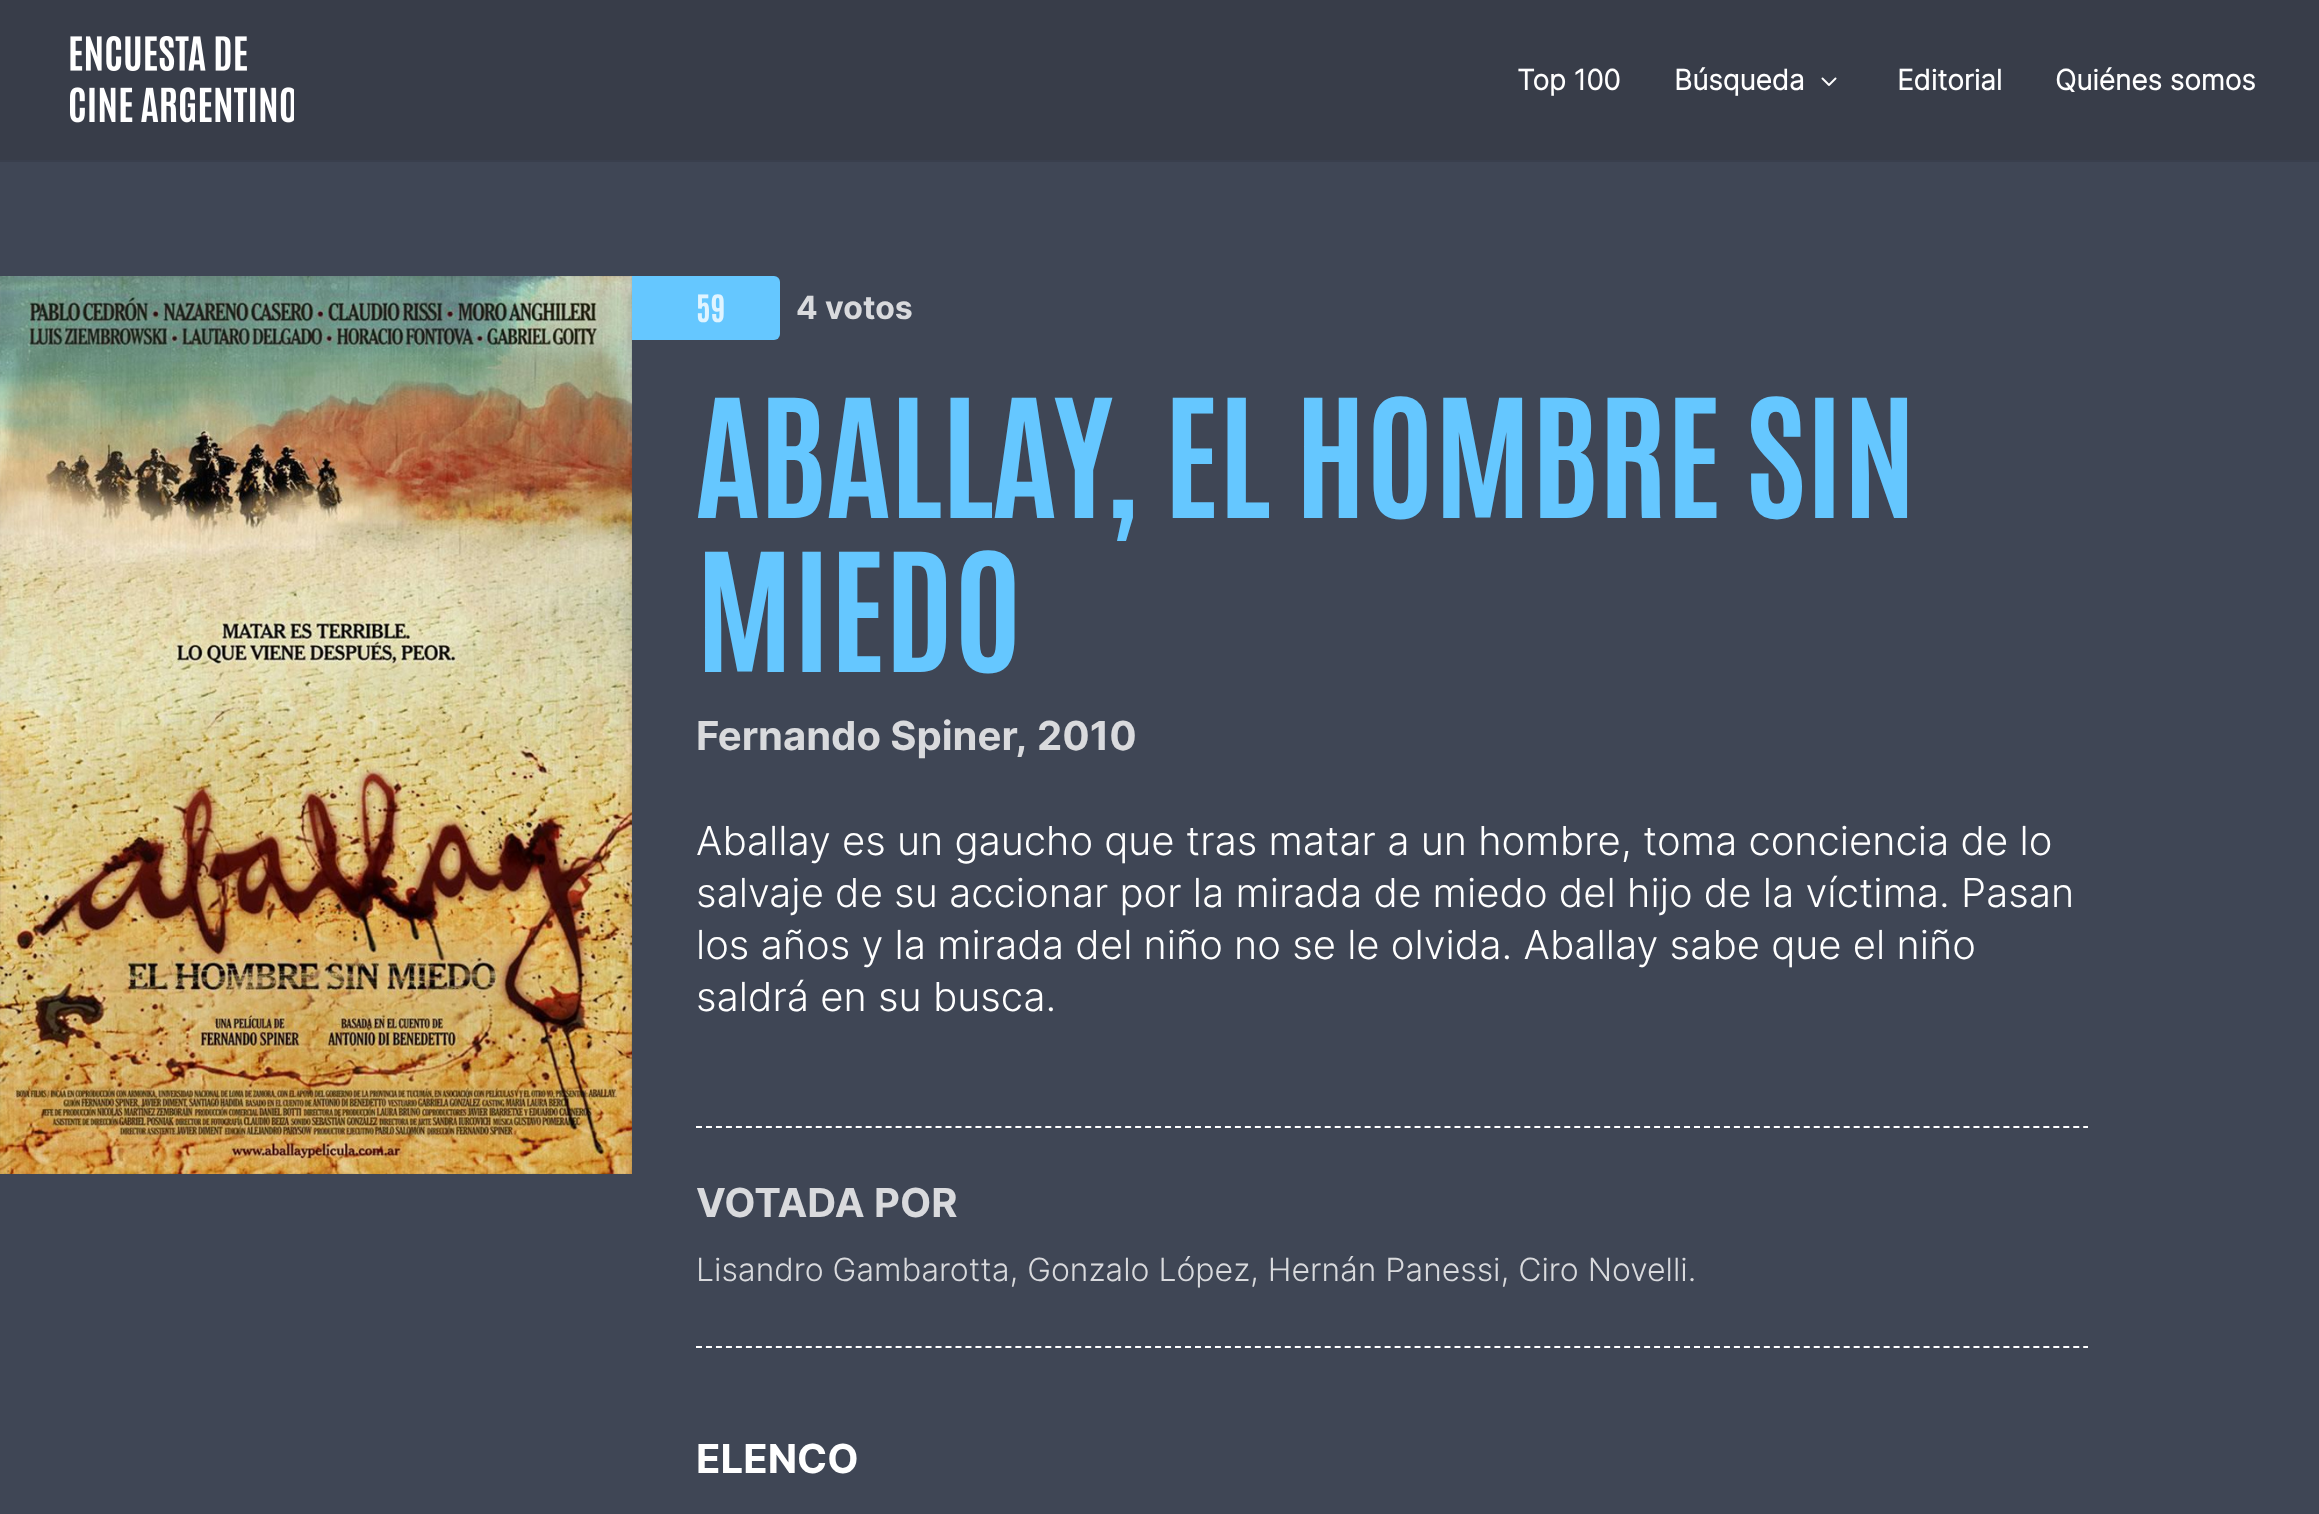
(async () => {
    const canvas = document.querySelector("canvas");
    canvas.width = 2319;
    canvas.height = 1514;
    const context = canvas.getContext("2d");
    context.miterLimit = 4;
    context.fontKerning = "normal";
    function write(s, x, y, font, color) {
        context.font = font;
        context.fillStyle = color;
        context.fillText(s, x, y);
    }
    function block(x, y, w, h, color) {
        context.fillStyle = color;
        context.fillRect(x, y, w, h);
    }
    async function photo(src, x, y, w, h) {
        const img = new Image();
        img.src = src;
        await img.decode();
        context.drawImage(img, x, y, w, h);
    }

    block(0, 0, 2319, 1514, "rgb(56, 61, 73)");
    block(0, 160, 2319, 2, "rgb(57, 63, 77)");
    await photo("media/1.png", 70, 36, 224, 87);
    write("Top 100", 1517, 90, "bold 28px 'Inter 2'", "rgb(255, 255, 255)");
    write("Búsqueda", 1674, 90, "bold 28px 'Inter 2'", "rgb(255, 255, 255)");
    await photo("media/2.png", 1821, 77, 16, 9);
    write("Editorial", 1897, 90, "bold 28px 'Inter 2'", "rgb(255, 255, 255)");
    write("Quiénes somos", 2055, 90, "bold 28px 'Inter 2'", "rgb(255, 255, 255)");
    block(0, 162, 2319, 1352, "rgb(63, 70, 85)");
    await photo("media/3.png", 0, 276, 632, 898);
    context.fillStyle = "rgb(101, 199, 255)";
    context.beginPath();
    context.roundRect(632, 276, 148, 64, [0, 6, 6, 0]);
    context.fill();
    write("59", 696, 322, "bold 32px Antonio", "rgb(224, 244, 255)");
    write("4 votos", 796, 319, "bold 32px Inter", "rgb(217, 218, 221)");
    write("ABALLAY, EL HOMBRE SIN", 696, 518, "bold 140px Antonio", "rgb(101, 199, 255)");
    write("MIEDO", 696, 672, "bold 140px Antonio", "rgb(101, 199, 255)");
    write("Fernando Spiner,", 696, 750, "bold 40px Inter", "rgb(217, 218, 221)");
    write("2010", 1037, 750, "bold 40px Inter", "rgb(217, 218, 221)");
    write("Aballay es un gaucho que tras matar a un hombre, toma conciencia de lo", 696, 855, "300 40px Inter", "rgb(255, 255, 255)");
    write("salvaje de su accionar por la mirada de miedo del hijo de la víctima. Pasan", 696, 907, "300 40px Inter", "rgb(255, 255, 255)");
    write("los años y la mirada del niño no se le olvida. Aballay sabe que el niño", 696, 959, "300 40px Inter", "rgb(255, 255, 255)");
    write("saldrá en su busca.", 696, 1011, "300 40px Inter", "rgb(255, 255, 255)");
    context.beginPath();
    context.moveTo(696, 1127);
    context.lineTo(2088, 1127);
    context.strokeStyle = "rgb(255, 255, 255)";
    context.lineWidth = 2;
    context.setLineDash([6, 3.98]);
    context.stroke();
    write("VOTADA POR", 696, 1217, "bold 40px Inter", "rgb(217, 218, 221)");
    write("Lisandro Gambarotta, Gonzalo López, Hernán Panessi, Ciro Novelli.", 696, 1281, "300 32px Inter", "rgb(217, 218, 221)");
    context.beginPath();
    context.moveTo(696, 1347);
    context.lineTo(2088, 1347);
    context.stroke();
    write("ELENCO", 696, 1473, "bold 40px Inter", "rgb(255, 255, 255)");
})();
